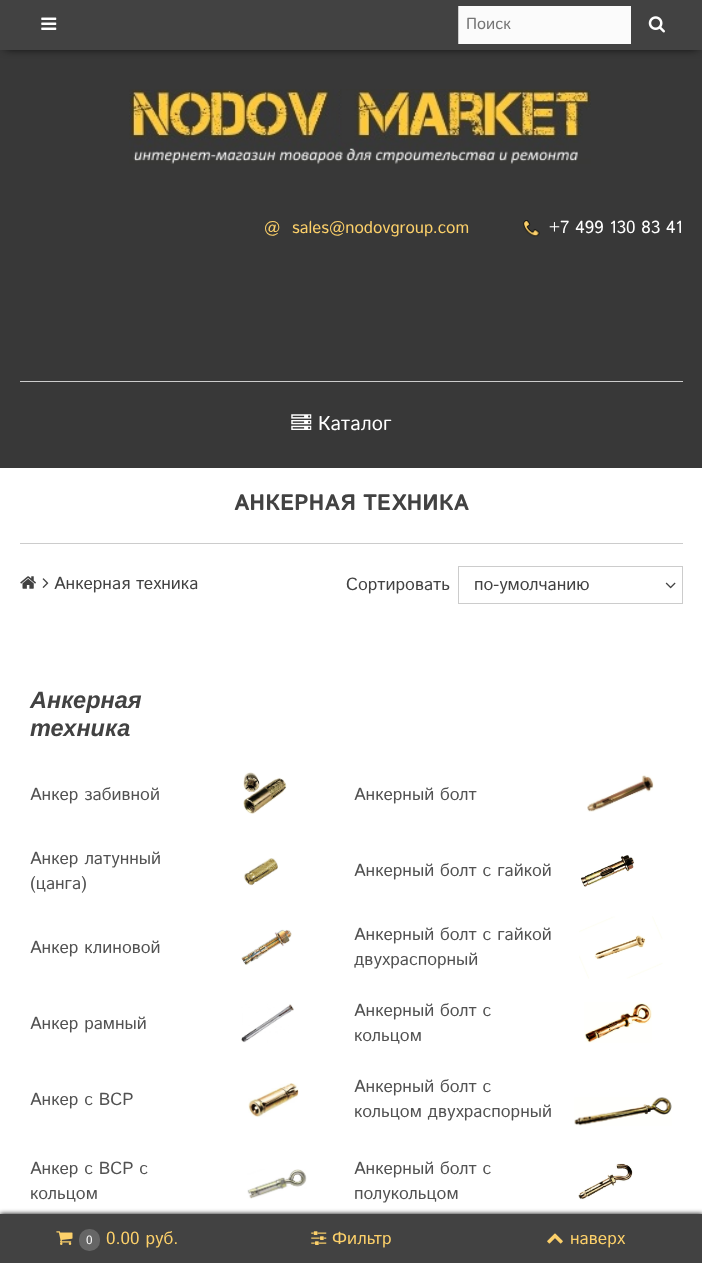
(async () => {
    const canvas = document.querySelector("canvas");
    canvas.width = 702;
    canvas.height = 1263;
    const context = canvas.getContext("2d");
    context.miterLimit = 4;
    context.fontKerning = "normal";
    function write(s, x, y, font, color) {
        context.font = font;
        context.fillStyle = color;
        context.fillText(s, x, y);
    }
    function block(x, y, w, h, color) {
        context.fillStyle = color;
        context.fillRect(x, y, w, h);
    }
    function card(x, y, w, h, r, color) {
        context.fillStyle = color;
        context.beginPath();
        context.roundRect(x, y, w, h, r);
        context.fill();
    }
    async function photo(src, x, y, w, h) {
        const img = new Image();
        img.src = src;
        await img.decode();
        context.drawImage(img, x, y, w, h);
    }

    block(0, 0, 702, 1263, "rgb(56, 56, 56)");
    context.fillStyle = "rgb(0, 0, 0)";
    context.filter = "blur(5px)";
    context.beginPath();
    context.rect(5, 8, 693, 40);
    context.fill();
    context.filter = "none";
    block(0, 0, 702, 50, "rgb(66, 66, 66)");
    await photo("media/1.png", 41, 17, 16, 13);
    block(459, 6, 172, 38, "rgb(251, 251, 251)");
    block(458, 6, 1, 38, "rgb(204, 204, 204)");
    write("Поиск", 466, 29, "16px Istok Web", "rgb(117, 117, 117)");
    await photo("media/2.png", 648, 16, 17, 17);
    await photo("media/3.png", 129, 89, 462, 75);
    write("@", 264, 233, "16.75px Istok Web", "rgb(252, 208, 106)");
    write("sales@nodovgroup.com", 292, 233, "16.75px Istok Web", "rgb(252, 208, 106)");
    await photo("media/4.png", 523, 220, 17, 17);
    write("+7 499 130 83 41", 549, 233, "17.5px Istok Web", "rgb(255, 255, 255)");
    block(20, 381, 663, 1, "rgb(204, 204, 204)");
    await photo("media/5.png", 291, 414, 21, 16);
    write("Каталог", 318, 430, "20px Istok Web", "rgb(255, 255, 255)");
    block(0, 468, 702, 746, "rgb(255, 255, 255)");
    block(20, 543, 663, 1, "rgb(204, 204, 204)");
    write("АНКЕРНАЯ ТЕХНИКА", 234, 510, "bold 22.5px Istok Web", "rgb(66, 66, 66)");
    await photo("media/6.png", 20, 576, 16, 13);
    await photo("media/7.png", 42, 578, 7, 10);
    write("Анкерная техника", 54, 589, "17.5px Istok Web", "rgb(66, 66, 66)");
    write("Сортировать", 346, 590, "17.5px Istok Web", "rgb(66, 66, 66)");
    context.strokeStyle = "rgb(204, 204, 204)";
    context.strokeRect(458.5, 566.5, 224, 37);
    write("по-умолчанию", 474, 590, "17.5px Istok Web", "rgb(66, 66, 66)");
    await photo("media/8.png", 665, 582, 11, 7);
    write("Анкерная", 30, 708, "italic bold 23.5px Liberation Sans", "rgb(66, 66, 66)");
    write("техника", 30, 736, "italic bold 23.5px Liberation Sans", "rgb(66, 66, 66)");
    write("Анкер забивной", 30, 800, "17.5px Istok Web", "rgb(82, 82, 82)");
    await photo("media/9.png", 243, 772, 44, 42);
    write("Анкерный болт", 354, 800, "17.5px Istok Web", "rgb(82, 82, 82)");
    await photo("media/10.png", 587, 775, 67, 37);
    write("Анкер латунный", 30, 864, "17.5px Istok Web", "rgb(82, 82, 82)");
    write("(цанга)", 30, 889, "17.5px Istok Web", "rgb(82, 82, 82)");
    await photo("media/11.png", 243, 858, 35, 28);
    write("Анкерный болт с гайкой", 354, 876, "17.5px Istok Web", "rgb(82, 82, 82)");
    await photo("media/12.png", 580, 855, 55, 32);
    write("Анкер клиновой", 30, 953, "17.5px Istok Web", "rgb(82, 82, 82)");
    await photo("media/13.png", 241, 929, 51, 36);
    write("Анкерный болт с гайкой", 354, 940, "17.5px Istok Web", "rgb(82, 82, 82)");
    write("двухраспорный", 354, 965, "17.5px Istok Web", "rgb(82, 82, 82)");
    await photo("media/14.png", 579, 916, 84, 63);
    write("Анкер рамный", 30, 1029, "17.5px Istok Web", "rgb(82, 82, 82)");
    await photo("media/15.png", 241, 1004, 53, 39);
    write("Анкерный болт с", 354, 1016, "17.5px Istok Web", "rgb(82, 82, 82)");
    write("кольцом", 354, 1041, "17.5px Istok Web", "rgb(82, 82, 82)");
    await photo("media/16.png", 584, 1002, 68, 41);
    write("Анкер с ВСР", 30, 1105, "17.5px Istok Web", "rgb(82, 82, 82)");
    await photo("media/17.png", 248, 1083, 51, 34);
    write("Анкерный болт с", 354, 1092, "17.5px Istok Web", "rgb(82, 82, 82)");
    write("кольцом двухраспорный", 354, 1117, "17.5px Istok Web", "rgb(82, 82, 82)");
    await photo("media/18.png", 574, 1097, 98, 29);
    write("Анкер с ВСР с", 30, 1174, "17.5px Istok Web", "rgb(82, 82, 82)");
    write("кольцом", 30, 1199, "17.5px Istok Web", "rgb(82, 82, 82)");
    await photo("media/19.png", 247, 1169, 60, 30);
    write("Анкерный болт с", 354, 1174, "17.5px Istok Web", "rgb(82, 82, 82)");
    write("полукольцом", 354, 1199, "17.5px Istok Web", "rgb(82, 82, 82)");
    await photo("media/20.png", 578, 1163, 55, 37);
    context.fillStyle = "rgb(0, 0, 0)";
    context.filter = "blur(2.5px)";
    context.beginPath();
    context.rect(0, 1214, 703, 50);
    context.fill();
    context.filter = "none";
    block(0, 1214, 702, 49, "rgb(66, 66, 66)");
    await photo("media/21.png", 56, 1231, 17, 14);
    card(79, 1229, 21, 22, 10, "rgb(102, 102, 102)");
    write("0", 86, 1244, "12px Istok Web", "rgb(255, 255, 255)");
    write("0.00 руб.", 106, 1244, "17.5px Istok Web", "rgb(252, 208, 106)");
    await photo("media/22.png", 311, 1231, 16, 14);
    write("Фильтр", 332, 1244, "17.5px Istok Web", "rgb(252, 208, 106)");
    await photo("media/23.png", 547, 1233, 16, 11);
    write("наверх", 570, 1244, "17.5px Istok Web", "rgb(252, 208, 106)");
})();
